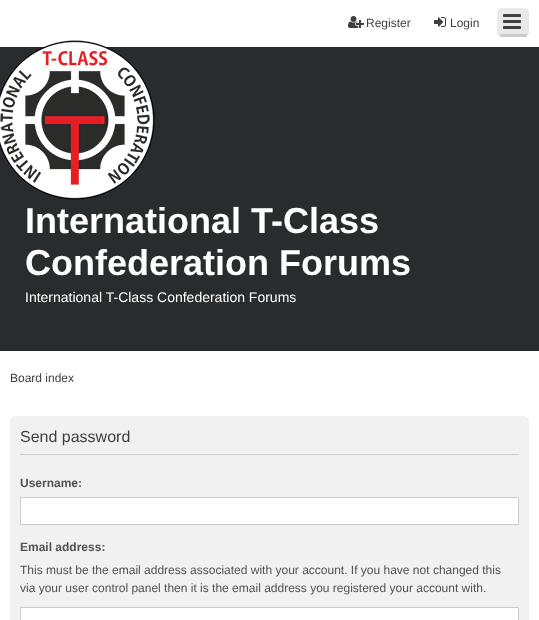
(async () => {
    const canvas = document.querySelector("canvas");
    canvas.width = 539;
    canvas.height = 620;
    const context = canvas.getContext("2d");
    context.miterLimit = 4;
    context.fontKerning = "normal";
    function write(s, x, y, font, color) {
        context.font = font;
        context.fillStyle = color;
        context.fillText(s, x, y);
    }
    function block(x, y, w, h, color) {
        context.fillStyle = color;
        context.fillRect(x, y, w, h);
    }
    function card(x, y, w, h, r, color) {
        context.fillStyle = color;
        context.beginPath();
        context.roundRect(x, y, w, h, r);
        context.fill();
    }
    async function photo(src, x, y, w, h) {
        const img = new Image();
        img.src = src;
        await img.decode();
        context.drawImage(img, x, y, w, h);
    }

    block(0, 0, 539, 620, "rgb(255, 255, 255)");
    await photo("media/1.png", 348, 16, 16, 12);
    write("Register", 366, 27, "12px Liberation Sans", "rgb(63, 63, 63)");
    await photo("media/2.png", 434, 17, 12, 10);
    write("Login", 450, 27, "12px Liberation Sans", "rgb(63, 63, 63)");
    card(497, 8, 32, 29, 5, "rgb(233, 233, 233)");
    block(500, 34, 27, 3, "rgb(204, 204, 204)");
    await photo("media/3.png", 503, 14, 18, 15);
    block(0, 47, 539, 304, "rgb(41, 44, 47)");
    await photo("media/4.png", 0, 40, 155, 160);
    write("International T-Class", 25, 233, "bold 36px Liberation Sans", "rgb(255, 255, 255)");
    write("Confederation Forums", 25, 275, "bold 36px Liberation Sans", "rgb(255, 255, 255)");
    write("International T-Class Confederation Forums", 25, 302, "14px Liberation Sans", "rgb(255, 255, 255)");
    write("Board index", 10, 382, "12px Liberation Sans", "rgb(63, 63, 63)");
    card(10, 416, 519, 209, 5, "rgb(241, 241, 241)");
    block(20, 454, 499, 1, "rgb(204, 204, 204)");
    write("Send password", 20, 442, "16px Liberation Sans", "rgb(63, 63, 63)");
    write("Username:", 20, 487, "bold 12px Liberation Sans", "rgb(82, 82, 82)");
    context.fillStyle = "rgb(255, 255, 255)";
    context.beginPath();
    context.rect(20.5, 497.5, 498, 27);
    context.fill();
    context.strokeStyle = "rgb(204, 204, 204)";
    context.stroke();
    write("Email address:", 20, 551, "bold 12px Liberation Sans", "rgb(82, 82, 82)");
    write("This must be the email address associated with your account. If you have not changed this", 20, 574, "12px Liberation Sans", "rgb(82, 82, 82)");
    write("via your user control panel then it is the email address you registered your account with.", 20, 592, "12px Liberation Sans", "rgb(82, 82, 82)");
    context.fillStyle = "rgb(255, 255, 255)";
    context.beginPath();
    context.rect(20.5, 607.5, 498, 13);
    context.fill();
    context.stroke();
})();
